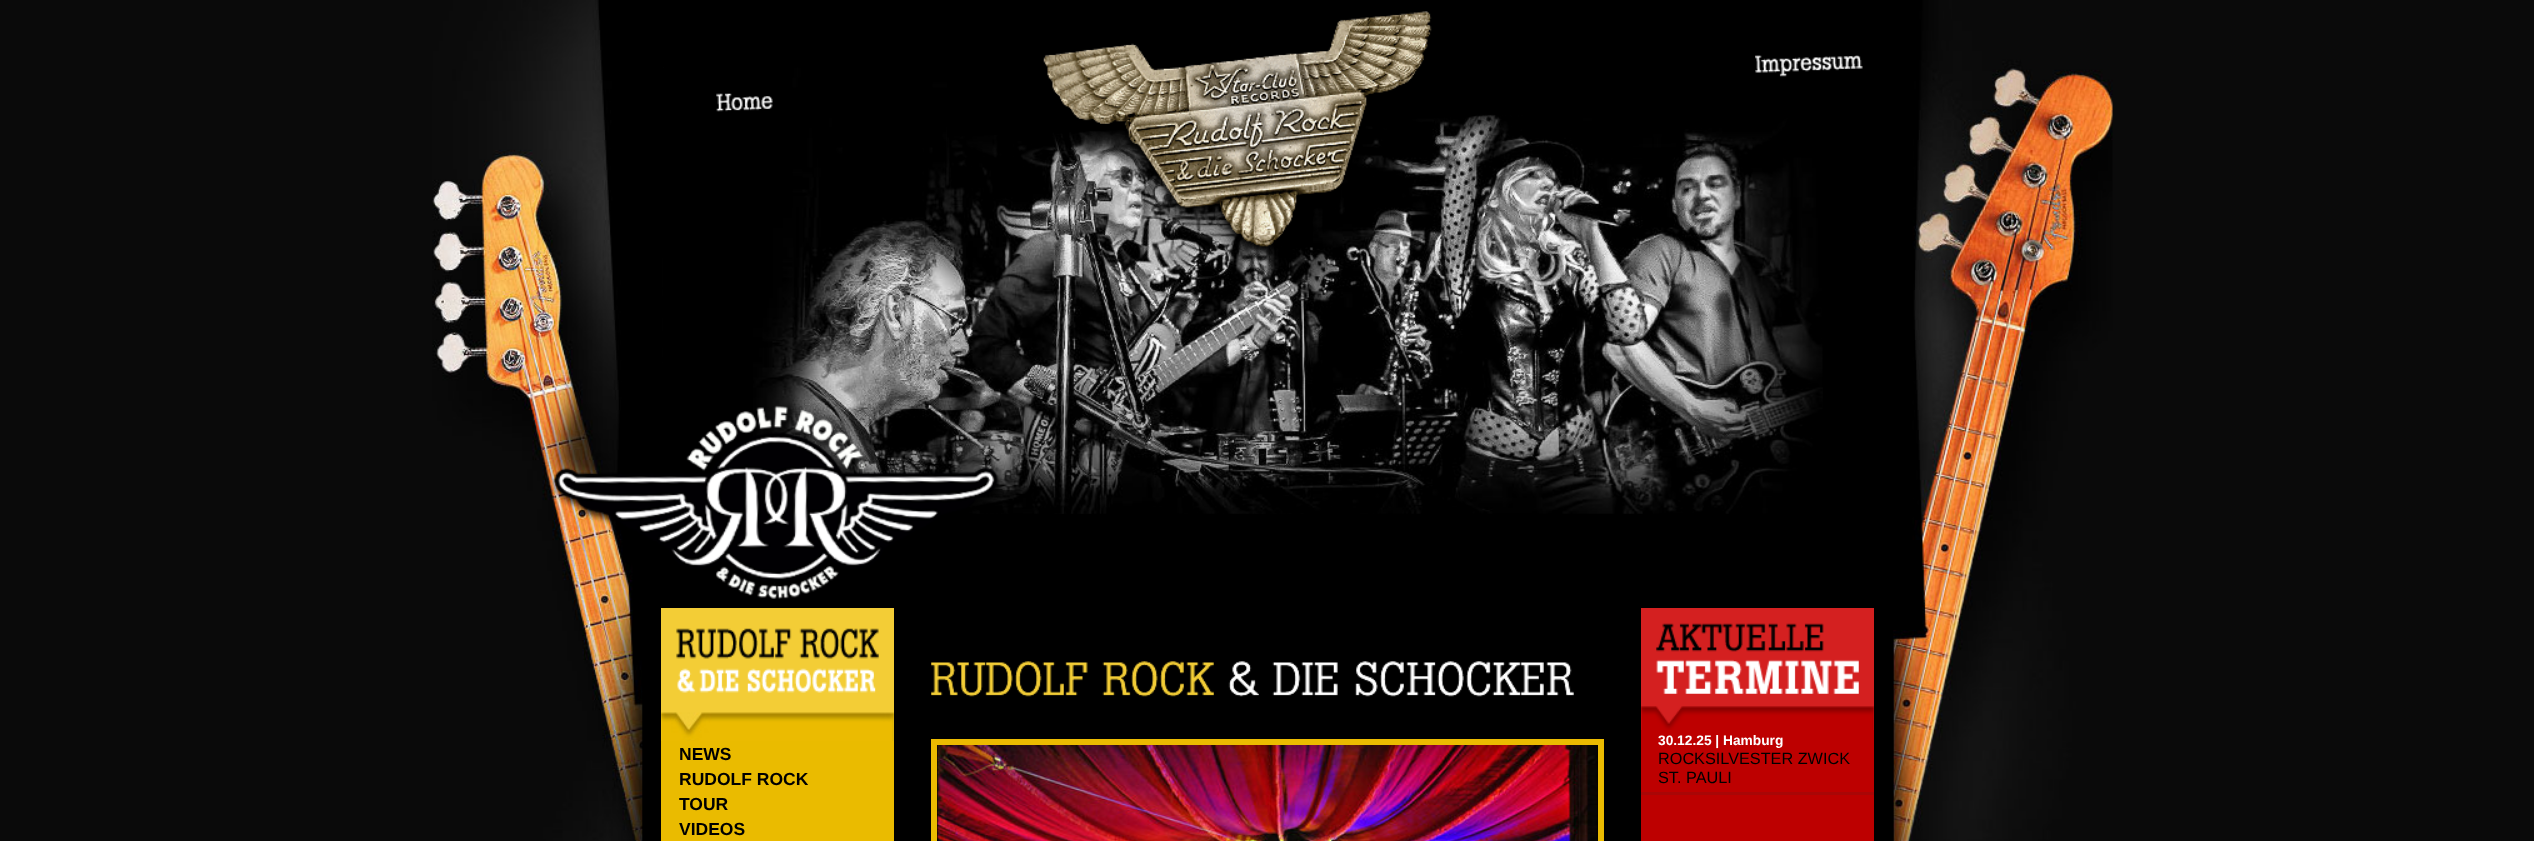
(async () => {
    const canvas = document.querySelector("canvas");
    canvas.width = 2534;
    canvas.height = 841;
    const context = canvas.getContext("2d");
    context.miterLimit = 4;
    context.fontKerning = "normal";
    function write(s, x, y, font, color) {
        context.font = font;
        context.fillStyle = color;
        context.fillText(s, x, y);
    }
    function block(x, y, w, h, color) {
        context.fillStyle = color;
        context.fillRect(x, y, w, h);
    }
    async function photo(src, x, y, w, h) {
        const img = new Image();
        img.src = src;
        await img.decode();
        context.drawImage(img, x, y, w, h);
    }

    block(0, 0, 2534, 841, "rgb(10, 10, 10)");
    await photo("media/1.png", 432, 0, 1681, 841);
    await photo("media/11.png", 662, 105, 1204, 409);
    await photo("media/10.png", 662, 98, 1204, 416);
    await photo("media/7.png", 737, 67, 1115, 447);
    await photo("media/6.png", 691, 67, 1168, 447);
    await photo("media/12.png", 941, 513, 813, 1);
    await photo("media/5.png", 663, 67, 1203, 447);
    await photo("media/9.png", 663, 68, 1203, 446);
    await photo("media/8.png", 753, 67, 1070, 447);
    await photo("media/13.png", 947, 67, 905, 96);
    await photo("media/2.png", 1043, 11, 389, 268);
    await photo("media/3.png", 1755, 55, 108, 22);
    await photo("media/4.png", 716, 93, 57, 19);
    await photo("media/15.png", 642, 532, 19, 309);
    await photo("media/14.png", 552, 405, 452, 194);
    block(1892, 630, 1, 198, "rgb(0, 0, 0)");
    block(661, 608, 233, 133, "rgb(243, 205, 54)");
    await photo("media/16.png", 661, 712, 233, 29);
    await photo("media/17.png", 676, 628, 203, 65);
    block(661, 741, 233, 100, "rgb(234, 187, 0)");
    write("NEWS", 679, 760, "bold 17.5px Liberation Sans", "rgb(0, 0, 0)");
    write("RUDOLF ROCK", 679, 785, "bold 17.5px Liberation Sans", "rgb(0, 0, 0)");
    write("TOUR", 679, 810, "bold 17.5px Liberation Sans", "rgb(0, 0, 0)");
    write("VIDEOS", 679, 835, "bold 17.5px Liberation Sans", "rgb(0, 0, 0)");
    await photo("media/18.png", 931, 661, 643, 36);
    context.strokeStyle = "rgb(235, 187, 1)";
    context.lineWidth = 6;
    context.strokeRect(934, 742, 667, 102);
    await photo("media/19.png", 937, 745, 661, 96);
    block(1641, 608, 233, 122, "rgb(212, 32, 32)");
    await photo("media/20.png", 1641, 706, 233, 24);
    await photo("media/21.png", 1656, 623, 203, 71);
    block(1641, 730, 233, 111, "rgb(189, 0, 0)");
    write("30.12.25 | Hamburg", 1658, 745, "bold 13.75px Liberation Sans", "rgb(255, 255, 255)");
    write("ROCKSILVESTER ZWICK", 1658, 764, "16.25px Liberation Sans", "rgb(0, 0, 0)");
    write("ST. PAULI", 1658, 783, "16.25px Liberation Sans", "rgb(0, 0, 0)");
    block(1641, 792, 233, 3, "rgb(169, 6, 6)");
})();
